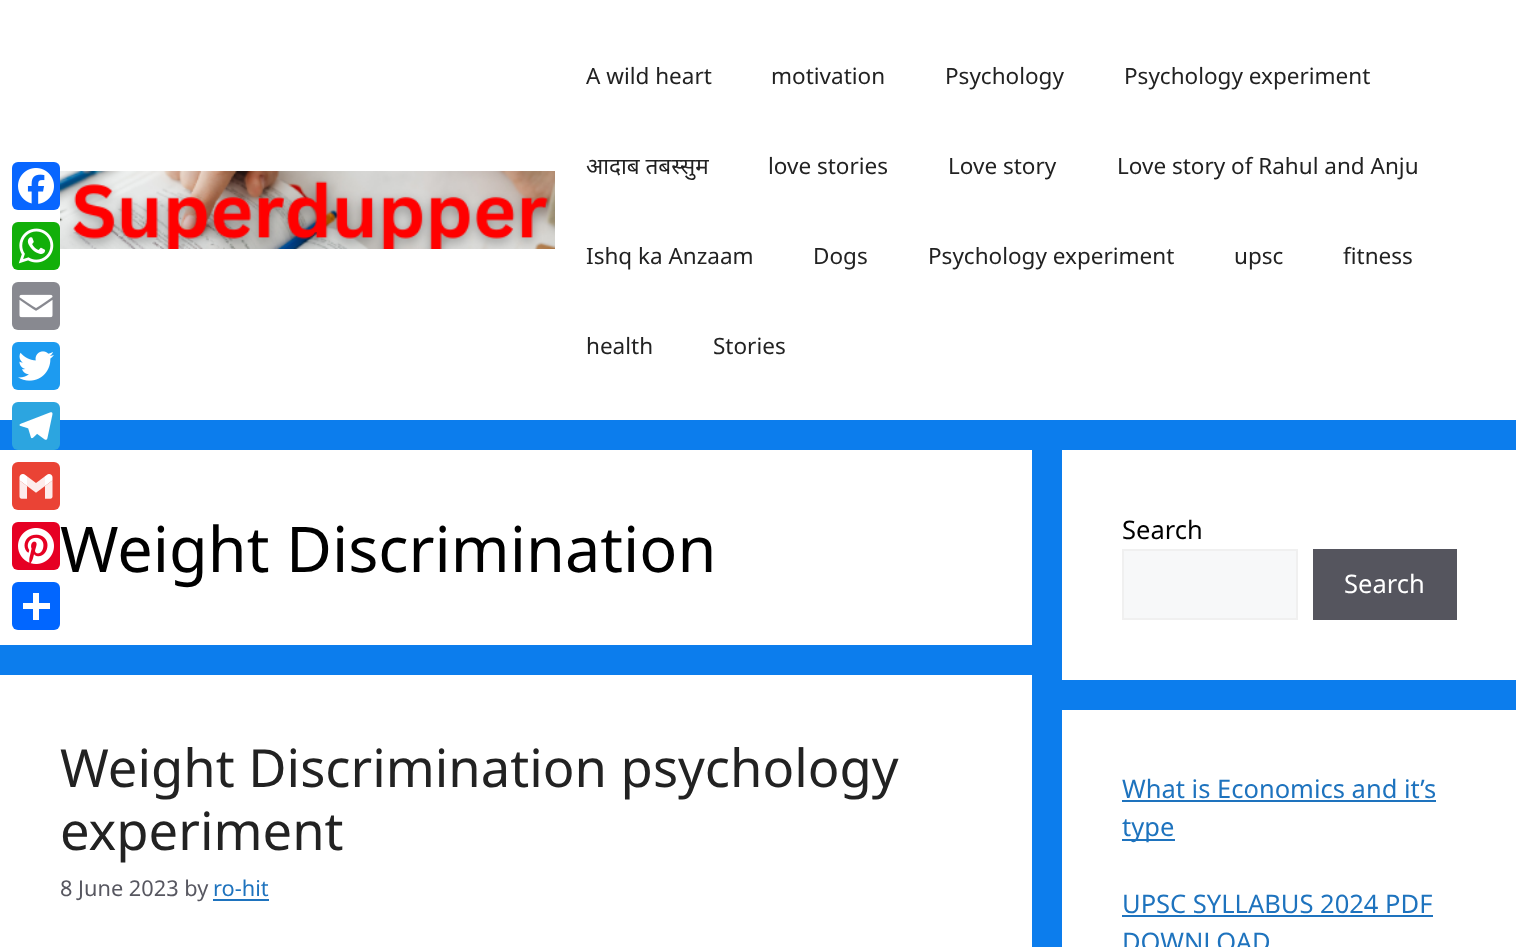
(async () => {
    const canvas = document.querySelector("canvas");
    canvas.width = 1516;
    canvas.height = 947;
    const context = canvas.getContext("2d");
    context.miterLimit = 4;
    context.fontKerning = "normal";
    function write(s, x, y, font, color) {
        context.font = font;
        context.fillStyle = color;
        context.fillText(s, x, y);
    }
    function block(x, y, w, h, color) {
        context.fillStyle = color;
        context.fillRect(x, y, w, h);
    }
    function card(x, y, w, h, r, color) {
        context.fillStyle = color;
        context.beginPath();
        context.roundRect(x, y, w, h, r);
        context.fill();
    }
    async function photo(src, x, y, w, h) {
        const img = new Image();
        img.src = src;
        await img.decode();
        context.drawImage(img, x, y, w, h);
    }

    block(0, 0, 1516, 947, "rgb(12, 125, 237)");
    block(0, 0, 1516, 420, "rgb(255, 255, 255)");
    card(12, 162, 48, 48, 6, "rgb(8, 102, 255)");
    await photo("media/1.png", 18, 168, 36, 36);
    card(12, 222, 48, 48, 6, "rgb(18, 175, 10)");
    await photo("media/2.png", 18, 228, 36, 36);
    card(12, 282, 48, 48, 6, "rgb(136, 137, 144)");
    await photo("media/3.png", 19, 294, 34, 24);
    card(12, 342, 48, 48, 6, "rgb(29, 155, 240)");
    await photo("media/4.png", 18, 351, 36, 30);
    card(12, 402, 48, 48, 6, "rgb(44, 165, 224)");
    await photo("media/5.png", 19, 412, 34, 28);
    block(0, 450, 1032, 195, "rgb(255, 255, 255)");
    card(12, 462, 48, 48, 6, "rgb(234, 67, 53)");
    await photo("media/6.png", 19, 474, 34, 25);
    card(12, 522, 48, 48, 6, "rgb(230, 0, 35)");
    await photo("media/7.png", 18, 528, 36, 36);
    card(12, 582, 48, 48, 6, "rgb(1, 102, 255)");
    block(33, 593, 6, 27, "rgb(255, 255, 255)");
    block(23, 603, 27, 6, "rgb(255, 255, 255)");
    await photo("media/8.png", 60, 171, 495, 78);
    write("A wild heart", 586, 84, "22.5px Noto Sans", "rgb(34, 34, 34)");
    write("motivation", 771, 84, "22.5px Noto Sans", "rgb(34, 34, 34)");
    write("Psychology", 945, 84, "22.5px Noto Sans", "rgb(34, 34, 34)");
    write("Psychology experiment", 1124, 84, "22.5px Noto Sans", "rgb(34, 34, 34)");
    write("आदाब तबस्सुम", 586, 174, "22.5px Noto Sans", "rgb(34, 34, 34)");
    write("love stories", 768, 174, "22.5px Noto Sans", "rgb(34, 34, 34)");
    write("Love story", 948, 174, "22.5px Noto Sans", "rgb(34, 34, 34)");
    write("Love story of Rahul and Anju", 1117, 174, "22.5px Noto Sans", "rgb(34, 34, 34)");
    write("Ishq ka Anzaam", 586, 264, "22.5px Noto Sans", "rgb(34, 34, 34)");
    write("Dogs", 813, 264, "22.5px Noto Sans", "rgb(34, 34, 34)");
    write("Psychology experiment", 928, 264, "22.5px Noto Sans", "rgb(34, 34, 34)");
    write("upsc", 1234, 264, "22.5px Noto Sans", "rgb(34, 34, 34)");
    write("fitness", 1343, 264, "22.5px Noto Sans", "rgb(34, 34, 34)");
    write("health", 586, 354, "22.5px Noto Sans", "rgb(34, 34, 34)");
    write("Stories", 713, 354, "22.5px Noto Sans", "rgb(34, 34, 34)");
    write("Weight Discrimination", 60, 572, "63px Noto Sans", "rgb(0, 0, 0)");
    block(0, 675, 1032, 272, "rgb(255, 255, 255)");
    write("Weight Discrimination psychology", 60, 787, "52.5px Noto Sans", "rgb(34, 34, 34)");
    write("experiment", 60, 850, "52.5px Noto Sans", "rgb(34, 34, 34)");
    write("8 June 2023 by", 60, 896, "21.75px Noto Sans", "rgb(87, 87, 96)");
    write("ro-hit", 213, 896, "21.75px Noto Sans", "rgb(30, 115, 190)");
    block(213, 899, 56, 2, "rgb(30, 115, 190)");
    block(1062, 450, 454, 230, "rgb(255, 255, 255)");
    write("Search", 1122, 539, "25.5px Noto Sans", "rgb(0, 0, 0)");
    context.fillStyle = "rgb(247, 248, 249)";
    context.beginPath();
    context.rect(1123, 550, 174, 69);
    context.fill();
    context.strokeStyle = "rgb(240, 240, 240)";
    context.lineWidth = 2;
    context.stroke();
    block(1313, 549, 144, 71, "rgb(85, 85, 94)");
    write("Search", 1344, 593, "25.5px Noto Sans", "rgb(255, 255, 255)");
    block(1062, 710, 454, 237, "rgb(255, 255, 255)");
    write("What is Economics and it’s", 1122, 798, "25.5px Noto Sans", "rgb(30, 115, 190)");
    block(1122, 800, 314, 2, "rgb(30, 115, 190)");
    block(1122, 839, 53, 2, "rgb(30, 115, 190)");
    write("type", 1122, 836, "25.5px Noto Sans", "rgb(30, 115, 190)");
    write("UPSC SYLLABUS 2024 PDF", 1122, 913, "25.5px Noto Sans", "rgb(30, 115, 190)");
    block(1122, 915, 311, 2, "rgb(30, 115, 190)");
    write("DOWNLOAD", 1122, 951, "25.5px Noto Sans", "rgb(30, 115, 190)");
})();
